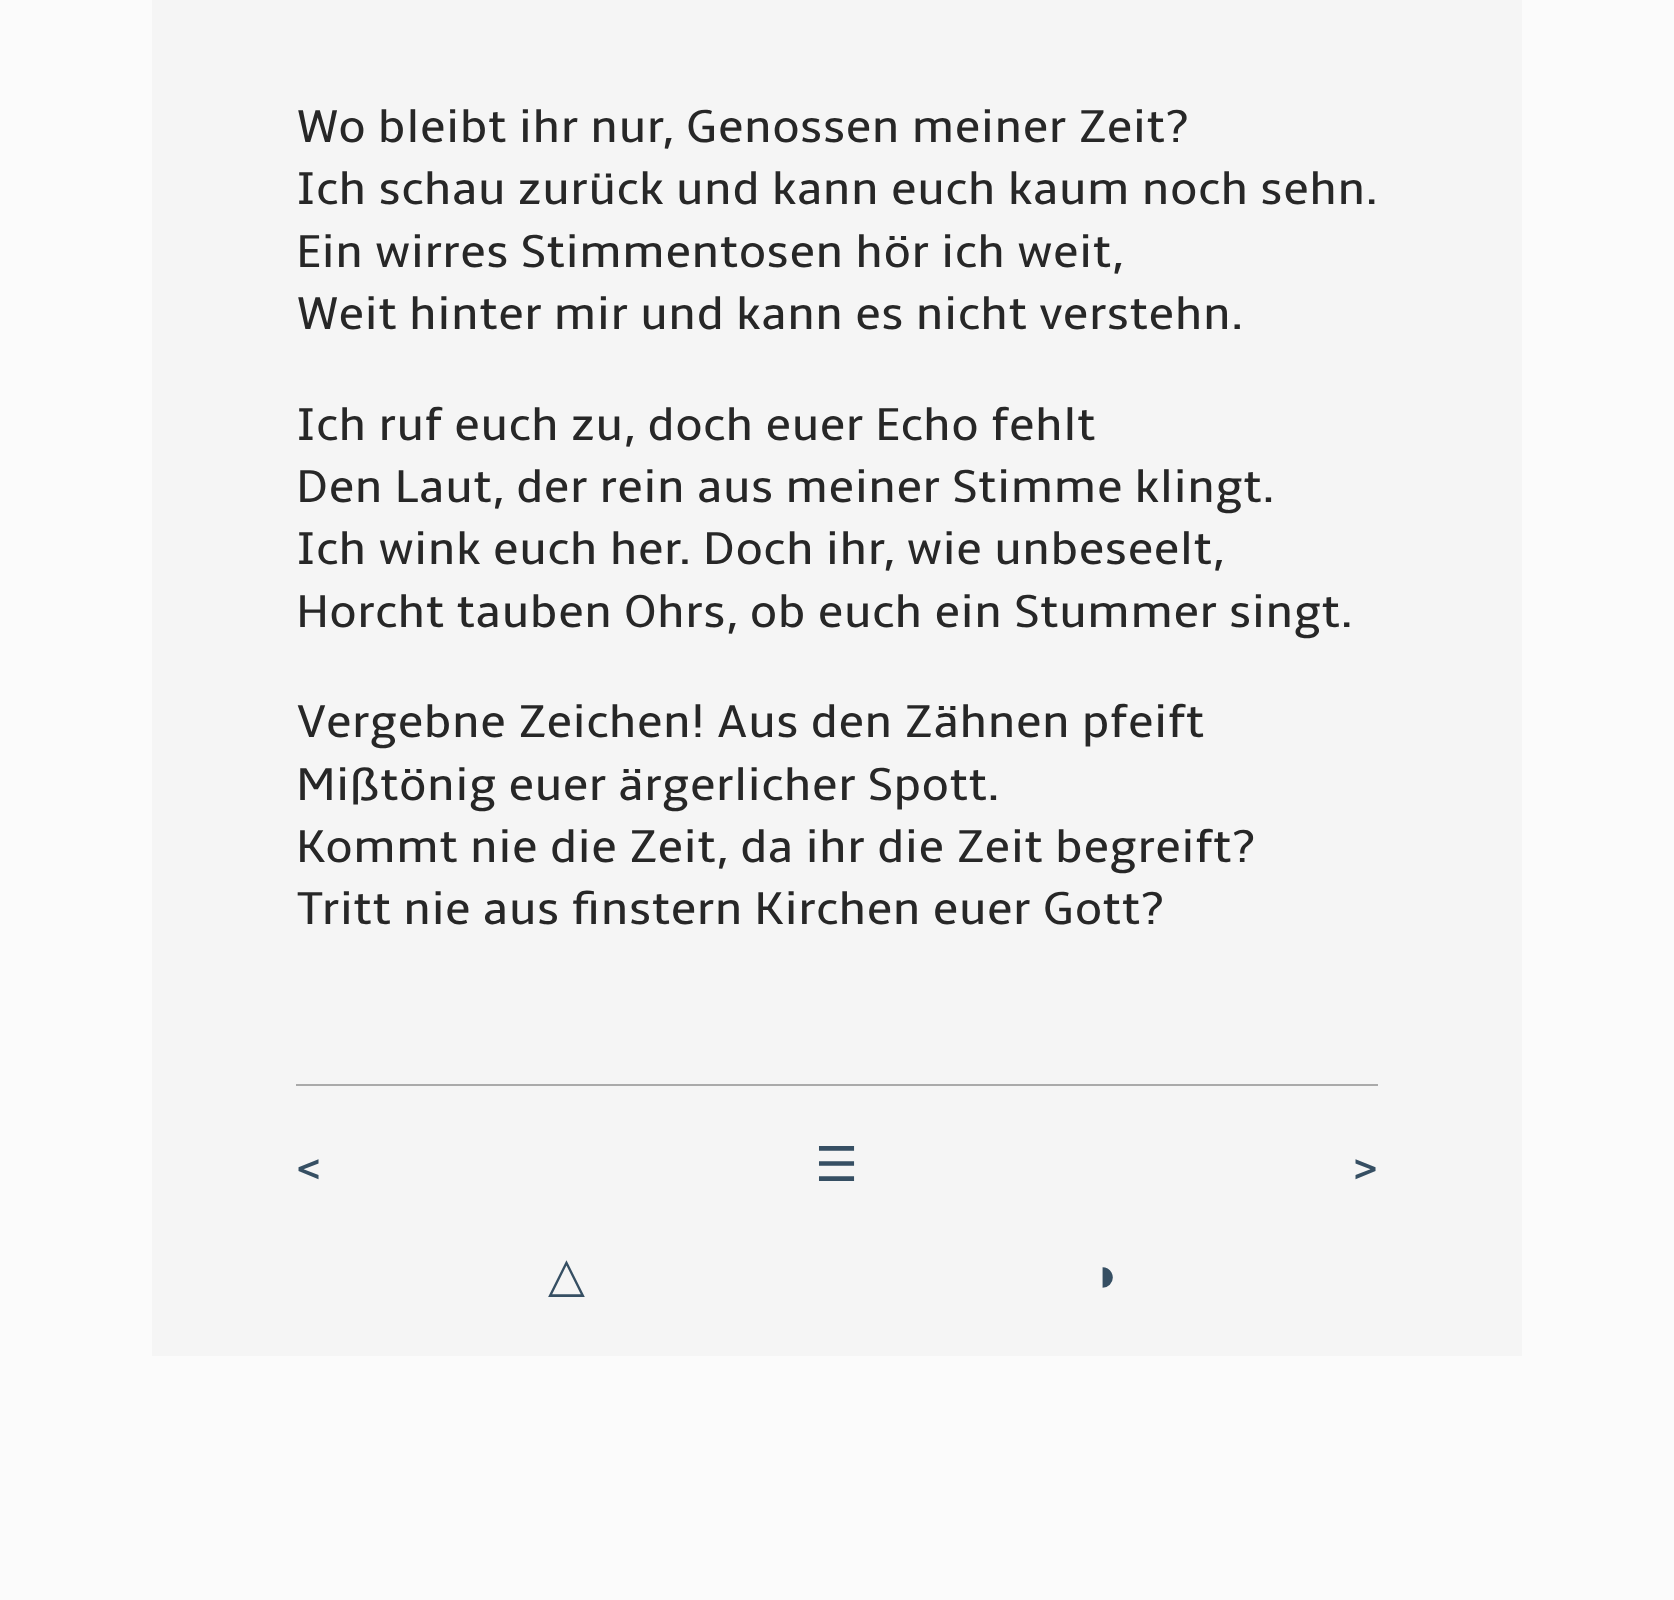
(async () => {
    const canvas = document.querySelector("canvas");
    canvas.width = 1674;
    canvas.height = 1600;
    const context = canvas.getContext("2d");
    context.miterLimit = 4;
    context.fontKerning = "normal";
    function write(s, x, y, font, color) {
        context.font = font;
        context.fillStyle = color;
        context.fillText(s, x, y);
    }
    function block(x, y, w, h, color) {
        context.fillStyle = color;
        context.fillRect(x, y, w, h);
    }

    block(0, 0, 1674, 1600, "rgb(251, 251, 251)");
    block(152, 0, 1370, 1356, "rgb(245, 245, 245)");
    write("Wo bleibt ihr nur, Genossen meiner Zeit?", 296, 142, "48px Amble", "rgb(39, 39, 39)");
    write("Ich schau zurück und kann euch kaum noch sehn.", 296, 204, "48px Amble", "rgb(39, 39, 39)");
    write("Ein wirres Stimmentosen hör ich weit,", 296, 267, "48px Amble", "rgb(39, 39, 39)");
    write("Weit hinter mir und kann es nicht verstehn.", 296, 329, "48px Amble", "rgb(39, 39, 39)");
    write("Ich ruf euch zu, doch euer Echo fehlt", 296, 440, "48px Amble", "rgb(39, 39, 39)");
    write("Den Laut, der rein aus meiner Stimme klingt.", 296, 502, "48px Amble", "rgb(39, 39, 39)");
    write("Ich wink euch her. Doch ihr, wie unbeseelt,", 296, 564, "48px Amble", "rgb(39, 39, 39)");
    write("Horcht tauben Ohrs, ob euch ein Stummer singt.", 296, 627, "48px Amble", "rgb(39, 39, 39)");
    write("Vergebne Zeichen! Aus den Zähnen pfeift", 296, 737, "48px Amble", "rgb(39, 39, 39)");
    write("Mißtönig euer ärgerlicher Spott.", 296, 800, "48px Amble", "rgb(39, 39, 39)");
    write("Kommt nie die Zeit, da ihr die Zeit begreift?", 296, 862, "48px Amble", "rgb(39, 39, 39)");
    write("Tritt nie aus finstern Kirchen euer Gott?", 296, 924, "48px Amble", "rgb(39, 39, 39)");
    block(296, 1084, 1082, 2, "rgb(170, 170, 170)");
    write("<", 296, 1181, "48px Amble", "rgb(54, 79, 99)");
    write("☰", 815, 1181, "48px DejaVu Sans", "rgb(54, 79, 99)");
    write(">", 1353, 1181, "48px Amble", "rgb(54, 79, 99)");
    write("△", 548, 1291, "48px DejaVu Sans", "rgb(54, 79, 99)");
    write("◗", 1093, 1291, "48px Liberation Sans", "rgb(54, 79, 99)");
})();
